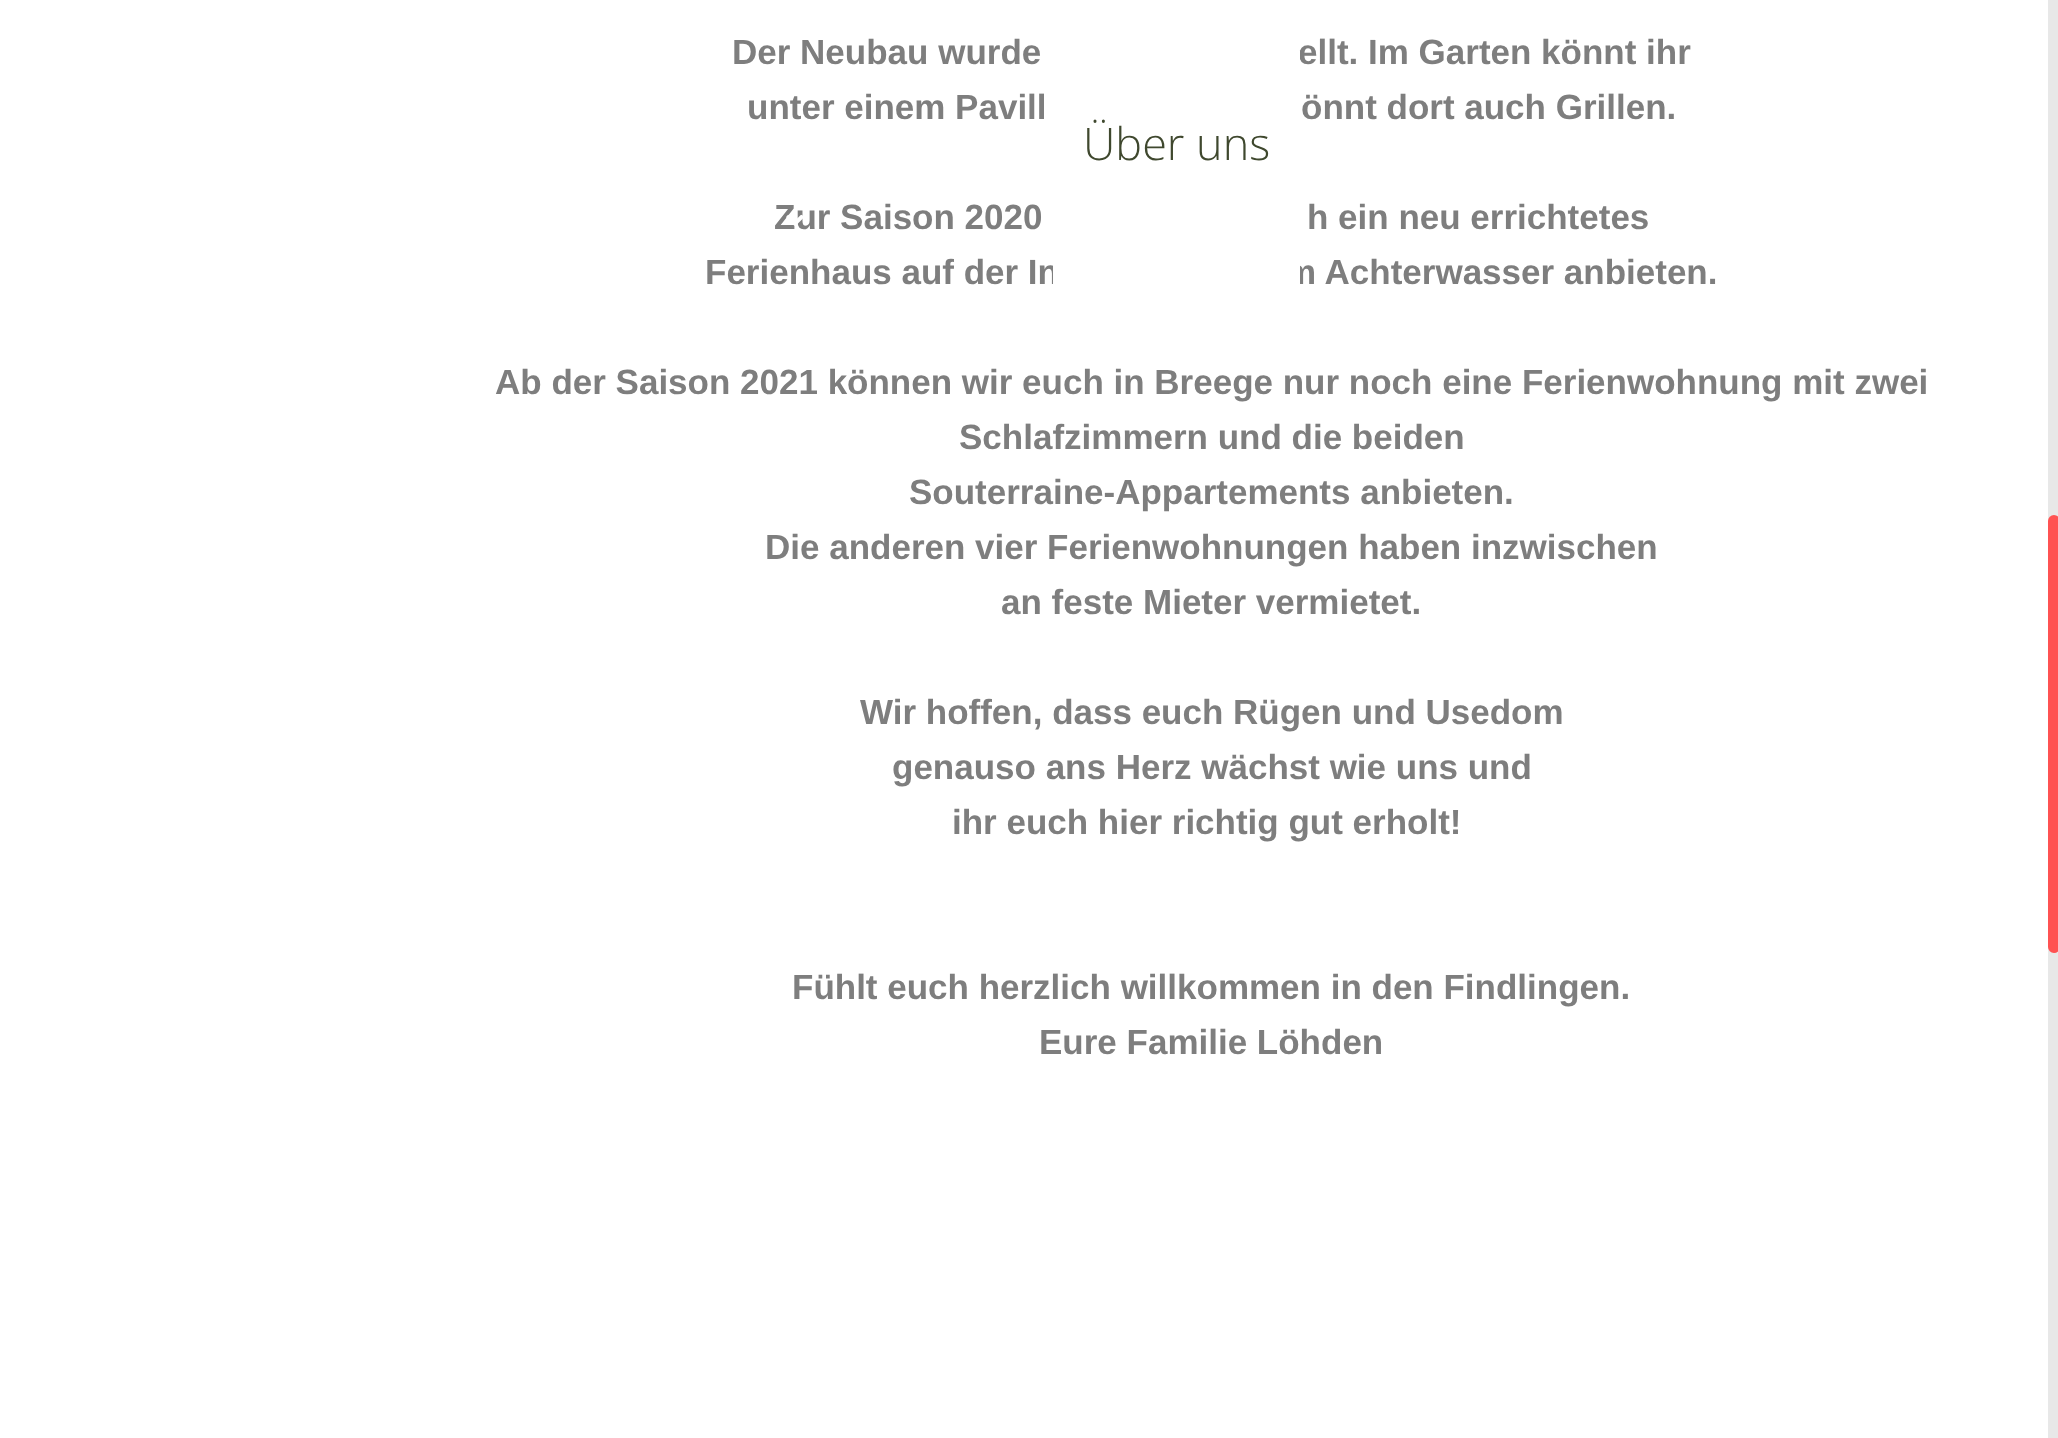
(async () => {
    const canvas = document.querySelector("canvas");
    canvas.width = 2058;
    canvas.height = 1438;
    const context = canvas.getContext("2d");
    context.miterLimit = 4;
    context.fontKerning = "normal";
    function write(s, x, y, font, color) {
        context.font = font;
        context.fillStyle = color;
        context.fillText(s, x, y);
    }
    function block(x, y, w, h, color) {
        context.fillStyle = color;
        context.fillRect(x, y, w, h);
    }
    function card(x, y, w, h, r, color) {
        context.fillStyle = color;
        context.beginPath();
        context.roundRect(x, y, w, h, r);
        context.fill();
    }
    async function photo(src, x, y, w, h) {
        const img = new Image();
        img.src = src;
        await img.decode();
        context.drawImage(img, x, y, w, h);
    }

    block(0, 0, 2058, 1438, "rgb(255, 255, 255)");
    write("Der Neubau wurde", 732, 64, "bold 35px Liberation Sans", "rgb(126, 126, 126)");
    write("ellt. Im Garten könnt ihr", 1298, 64, "bold 35px Liberation Sans", "rgb(126, 126, 126)");
    write("unter einem Pavill", 747, 119, "bold 35px Liberation Sans", "rgb(126, 126, 126)");
    write("önnt dort auch Grillen.", 1301, 119, "bold 35px Liberation Sans", "rgb(126, 126, 126)");
    write("Zur Saison 2020", 774, 229, "bold 35px Liberation Sans", "rgb(126, 126, 126)");
    write("h ein neu errichtetes", 1307, 229, "bold 35px Liberation Sans", "rgb(126, 126, 126)");
    write("Ferienhaus auf der In", 705, 284, "bold 35px Liberation Sans", "rgb(126, 126, 126)");
    write("m Achterwasser anbieten.", 1285, 284, "bold 35px Liberation Sans", "rgb(126, 126, 126)");
    write("Ab der Saison 2021 können wir euch in Breege nur noch eine Ferienwohnung mit zwei", 495, 394, "bold 35px Liberation Sans", "rgb(126, 126, 126)");
    write("Schlafzimmern und die beiden", 959, 449, "bold 35px Liberation Sans", "rgb(126, 126, 126)");
    write("Souterraine-Appartements anbieten.", 909, 504, "bold 35px Liberation Sans", "rgb(126, 126, 126)");
    write("Die anderen vier Ferienwohnungen haben inzwischen", 765, 559, "bold 35px Liberation Sans", "rgb(126, 126, 126)");
    write("an feste Mieter vermietet.", 1001, 614, "bold 35px Liberation Sans", "rgb(126, 126, 126)");
    write("Wir hoffen, dass euch Rügen und Usedom", 860, 724, "bold 35px Liberation Sans", "rgb(126, 126, 126)");
    write("genauso ans Herz wächst wie uns und", 892, 779, "bold 35px Liberation Sans", "rgb(126, 126, 126)");
    write("ihr euch hier richtig gut erholt!", 952, 834, "bold 35px Liberation Sans", "rgb(126, 126, 126)");
    write("Fühlt euch herzlich willkommen in den Findlingen.", 792, 999, "bold 35px Liberation Sans", "rgb(126, 126, 126)");
    write("Eure Familie Löhden", 1039, 1054, "bold 35px Liberation Sans", "rgb(126, 126, 126)");
    block(1053, 51, 247, 233, "rgb(255, 255, 255)");
    write("Über uns", 1083, 160, "300 45px Open Sans", "rgb(63, 72, 46)");
    await photo("media/1.png", 786, 211, 17, 15);
    block(2048, 0, 10, 1438, "rgb(232, 232, 232)");
    card(2048, 515, 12, 438, 6, "rgb(255, 82, 82)");
})();
